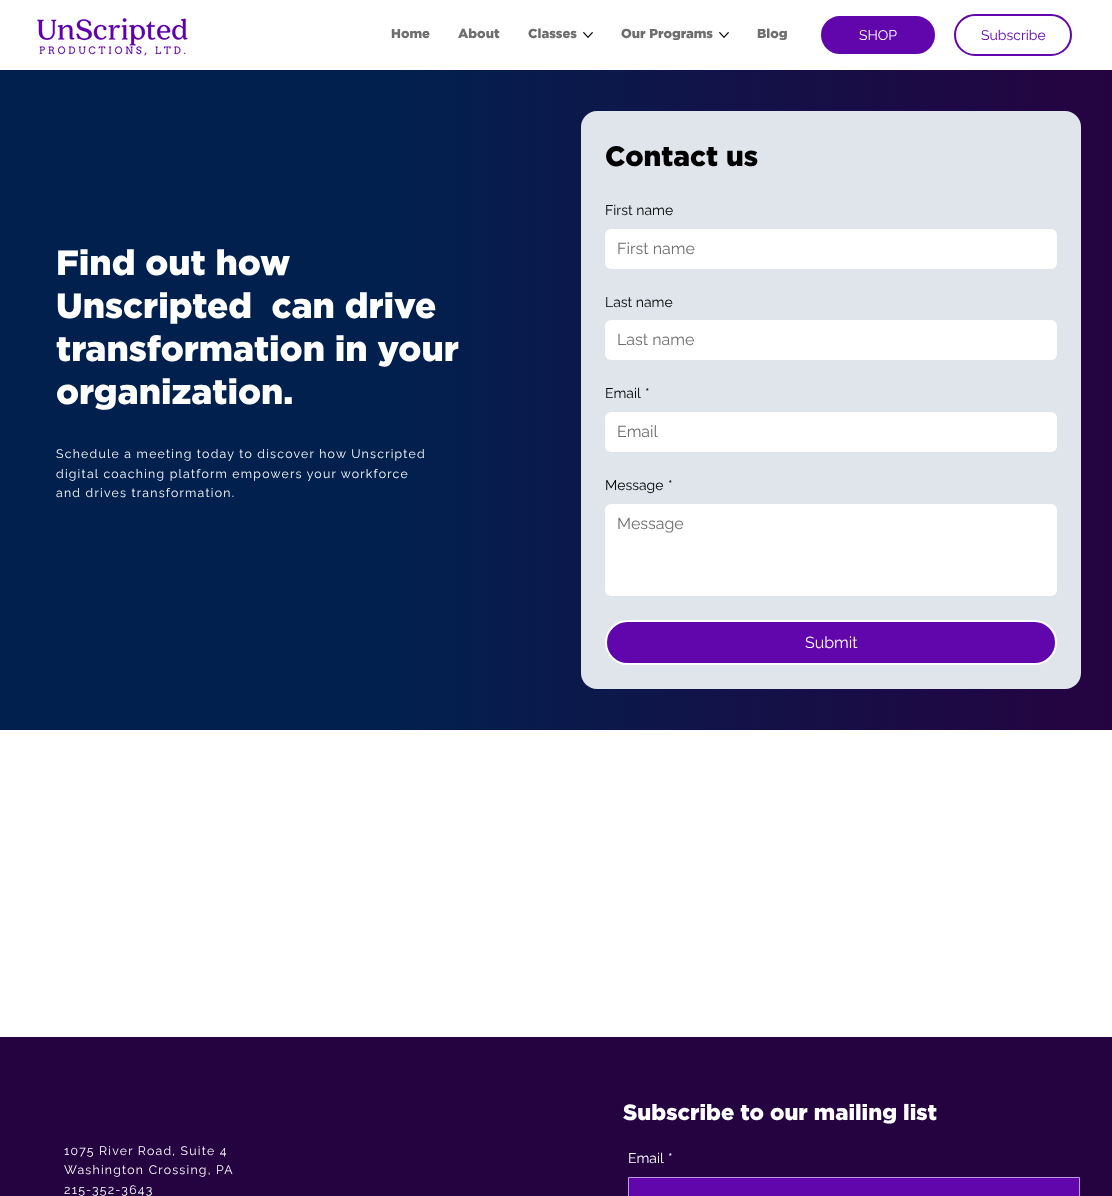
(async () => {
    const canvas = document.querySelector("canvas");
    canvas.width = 1112;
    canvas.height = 1196;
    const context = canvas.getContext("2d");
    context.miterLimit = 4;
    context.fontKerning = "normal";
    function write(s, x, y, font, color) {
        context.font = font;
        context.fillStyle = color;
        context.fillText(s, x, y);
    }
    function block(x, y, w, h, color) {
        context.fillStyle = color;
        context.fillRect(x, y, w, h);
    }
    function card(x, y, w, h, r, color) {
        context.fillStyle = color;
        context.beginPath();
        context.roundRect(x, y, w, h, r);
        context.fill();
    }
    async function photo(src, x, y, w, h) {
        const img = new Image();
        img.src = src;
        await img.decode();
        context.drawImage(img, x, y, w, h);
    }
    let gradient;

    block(0, 0, 1112, 1196, "rgb(255, 255, 255)");
    await photo("media/1.png", 37, 18, 151, 38);
    write("Home", 391, 38, "900 13px Gotham", "rgb(110, 110, 110)");
    write("About", 458, 38, "900 13px Gotham", "rgb(110, 110, 110)");
    write("Classes", 528, 38, "900 13px Gotham", "rgb(110, 110, 110)");
    await photo("media/2.png", 583, 32, 10, 6);
    write("Our Programs", 621, 38, "900 13px Gotham", "rgb(110, 110, 110)");
    await photo("media/2.png", 719, 32, 10, 6);
    write("Blog", 757, 38, "900 13px Gotham", "rgb(110, 110, 110)");
    context.fillStyle = "rgb(97, 5, 173)";
    context.beginPath();
    context.roundRect(820, 15, 116, 40, 20);
    context.fill();
    context.strokeStyle = "rgb(255, 255, 255)";
    context.lineWidth = 2;
    context.stroke();
    write("SHOP", 859, 40, "14px Raleway", "rgb(255, 255, 255)");
    context.beginPath();
    context.roundRect(955, 15, 116, 40, 20);
    context.strokeStyle = "rgb(97, 5, 173)";
    context.stroke();
    write("Subscribe", 981, 40, "14px Raleway", "rgb(97, 5, 173)");
    gradient = context.createLinearGradient(0, 400, 1112, 400);
    gradient.addColorStop(0.35, "rgb(1, 32, 78)");
    gradient.addColorStop(1, "rgb(37, 3, 65)");
    context.fillStyle = gradient;
    context.fillRect(0, 70, 1112, 660);
    write("Find out how", 56, 275, "900 35.2px Gotham", "rgb(255, 255, 255)");
    write("Unscripted  can drive", 56, 318, "900 35.2px Gotham", "rgb(255, 255, 255)");
    write("transformation in your", 56, 361, "900 35.2px Gotham", "rgb(255, 255, 255)");
    write("organization.", 56, 404, "900 35.2px Gotham", "rgb(255, 255, 255)");
    context.letterSpacing = "1.23px";
    write("Schedule a meeting today to discover how Unscripted", 56, 458, "12.3px Raleway", "rgb(255, 255, 255)");
    write("digital coaching platform empowers your workforce", 56, 478, "12.3px Raleway", "rgb(255, 255, 255)");
    write("and drives transformation.", 56, 497, "12.3px Raleway", "rgb(255, 255, 255)");
    card(581, 111, 500, 578, 16, "rgb(223, 229, 235)");
    context.letterSpacing = "0px";
    write("Contact us", 605, 166, "900 28px Gotham", "rgb(0, 0, 0)");
    write("First name", 605, 215, "14px Raleway", "rgb(0, 0, 0)");
    card(605, 229, 452, 40, 6, "rgb(255, 255, 255)");
    write("First name", 617, 254, "16px Raleway", "rgb(110, 110, 110)");
    write("Last name", 605, 307, "14px Raleway", "rgb(0, 0, 0)");
    card(605, 320, 452, 40, 6, "rgb(255, 255, 255)");
    write("Last name", 617, 345, "16px Raleway", "rgb(110, 110, 110)");
    write("Email", 605, 398, "14px Raleway", "rgb(0, 0, 0)");
    write("*", 645, 398, "14px Raleway", "rgb(0, 0, 0)");
    card(605, 412, 452, 40, 6, "rgb(255, 255, 255)");
    write("Email", 617, 437, "16px Raleway", "rgb(110, 110, 110)");
    write("Message", 605, 490, "14px Raleway", "rgb(0, 0, 0)");
    write("*", 668, 490, "14px Raleway", "rgb(0, 0, 0)");
    card(605, 504, 452, 92, 6, "rgb(255, 255, 255)");
    write("Message", 617, 529, "16px Raleway", "rgb(110, 110, 110)");
    context.fillStyle = "rgb(97, 5, 173)";
    context.beginPath();
    context.roundRect(606, 621, 450, 43, 21.5);
    context.fill();
    context.strokeStyle = "rgb(255, 255, 255)";
    context.stroke();
    write("Submit", 805, 648, "16px Raleway", "rgb(255, 255, 255)");
    block(0, 1037, 1112, 159, "rgb(37, 3, 65)");
    write("Subscribe to our mailing list", 623, 1120, "900 22px Gotham", "rgb(255, 255, 255)");
    write("Email", 628, 1163, "14px Raleway", "rgb(255, 255, 255)");
    write("*", 668, 1163, "14px Raleway", "rgb(255, 255, 255)");
    context.fillStyle = "rgb(97, 5, 173)";
    context.beginPath();
    context.rect(628.5, 1177.5, 451, 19);
    context.fill();
    context.strokeStyle = "rgb(192, 155, 222)";
    context.lineWidth = 1;
    context.stroke();
    context.letterSpacing = "1.23px";
    write("1075 River Road, Suite 4", 64, 1155, "12.3px Raleway", "rgb(255, 255, 255)");
    write("Washington Crossing, PA", 64, 1174, "12.3px Raleway", "rgb(255, 255, 255)");
    write("215-352-3643", 64, 1194, "12.3px Raleway", "rgb(255, 255, 255)");
})();
